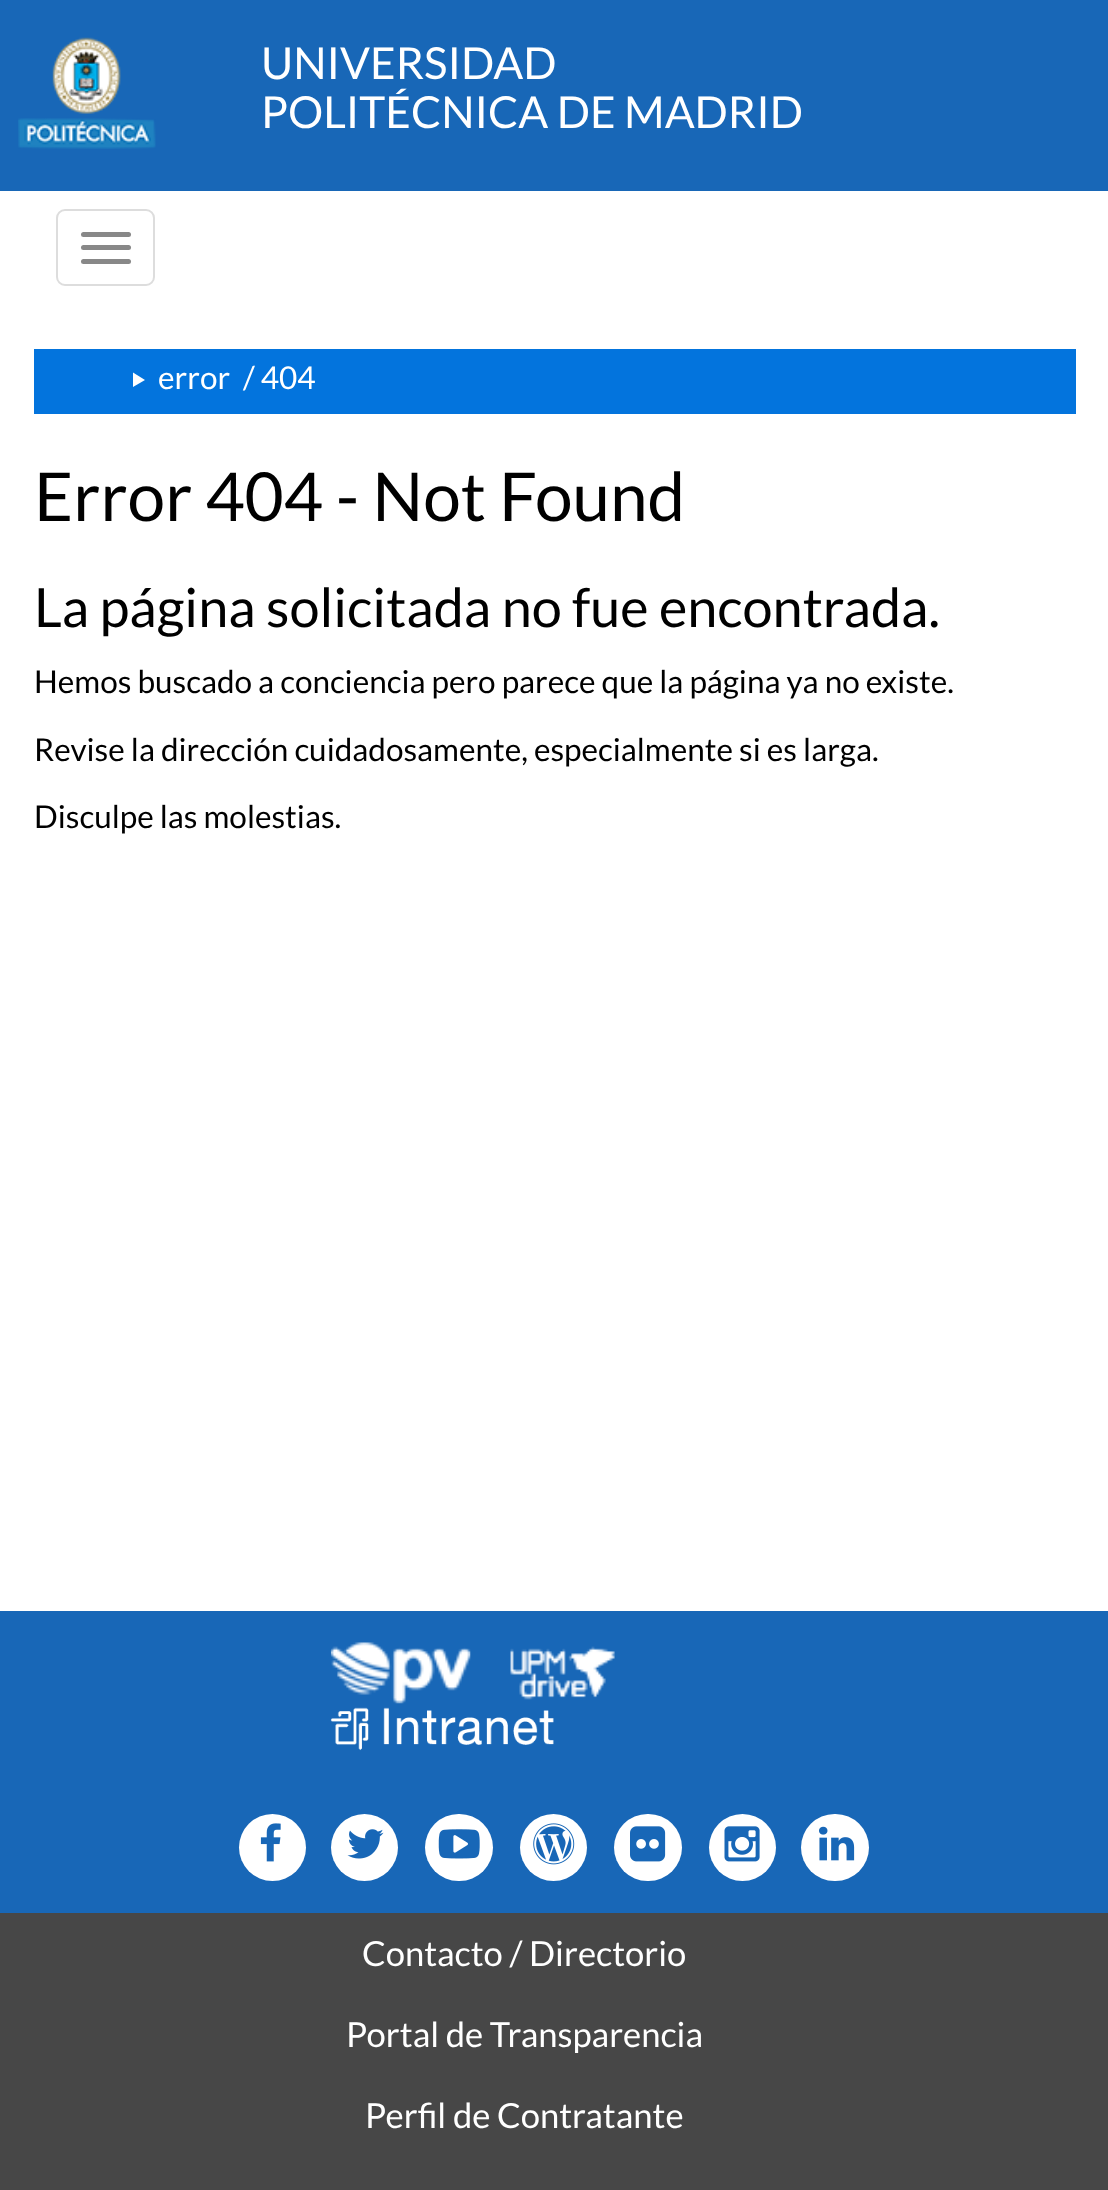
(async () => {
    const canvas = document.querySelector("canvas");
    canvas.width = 1108;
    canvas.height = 2190;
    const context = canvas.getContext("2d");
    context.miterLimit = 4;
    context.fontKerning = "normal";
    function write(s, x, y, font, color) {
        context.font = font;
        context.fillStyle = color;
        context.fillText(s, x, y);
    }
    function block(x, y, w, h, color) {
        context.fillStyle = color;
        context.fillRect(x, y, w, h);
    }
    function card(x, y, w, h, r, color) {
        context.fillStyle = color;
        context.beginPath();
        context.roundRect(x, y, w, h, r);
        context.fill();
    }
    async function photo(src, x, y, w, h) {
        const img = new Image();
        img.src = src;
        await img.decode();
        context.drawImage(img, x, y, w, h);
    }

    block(0, 0, 1108, 2190, "rgb(255, 255, 255)");
    block(0, 0, 1108, 191, "rgb(24, 103, 183)");
    await photo("media/1.png", 18, 37, 138, 112);
    write("UNIVERSIDAD", 261, 79, "44.1px Lato", "rgb(255, 255, 255)");
    write("POLITÉCNICA DE MADRID", 261, 128, "44.1px Lato", "rgb(255, 255, 255)");
    context.beginPath();
    context.roundRect(57, 210, 97, 75, 8);
    context.strokeStyle = "rgb(221, 221, 221)";
    context.lineWidth = 2;
    context.stroke();
    card(81, 232, 50, 5, 2.5, "rgb(136, 136, 136)");
    card(81, 245, 50, 5, 2.5, "rgb(136, 136, 136)");
    card(81, 259, 50, 5, 2.5, "rgb(136, 136, 136)");
    block(34, 349, 1042, 65, "rgb(3, 116, 221)");
    context.fillStyle = "rgb(255, 255, 255)";
    context.beginPath();
    context.moveTo(133, 387);
    context.lineTo(145, 380);
    context.lineTo(133, 372.5);
    context.closePath();
    context.fill();
    write("error", 158, 389, "31.5px Lato", "rgb(255, 255, 255)");
    write("/ 404", 243, 389, "31.5px Lato", "rgb(255, 255, 255)");
    write("Error 404 - Not Found", 34, 521, "67.5px Lato", "rgb(0, 0, 0)");
    write("La página solicitada no fue encontrada.", 34, 627, "54px Lato", "rgb(0, 0, 0)");
    write("Hemos buscado a conciencia pero parece que la página ya no existe.", 34, 693, "31.5px Lato", "rgb(0, 0, 0)");
    write("Revise la dirección cuidadosamente, especialmente si es larga.", 34, 761, "31.5px Lato", "rgb(0, 0, 0)");
    write("Disculpe las molestias.", 34, 828, "31.5px Lato", "rgb(0, 0, 0)");
    block(0, 1611, 1108, 302, "rgb(24, 103, 183)");
    await photo("media/2.png", 330, 1642, 141, 62);
    await photo("media/3.png", 510, 1646, 105, 54);
    await photo("media/4.png", 330, 1707, 224, 44);
    context.fillStyle = "rgb(255, 255, 255)";
    context.beginPath();
    context.arc(272.5, 1847.5, 33.5, 0, Math.PI * 2);
    context.fill();
    await photo("media/5.png", 260, 1823, 21, 39);
    context.beginPath();
    context.arc(364.5, 1847.5, 33.5, 0, Math.PI * 2);
    context.fill();
    await photo("media/6.png", 347, 1829, 37, 30);
    card(425, 1814, 68, 67, 33.5, "rgb(255, 255, 255)");
    await photo("media/7.png", 438, 1829, 42, 30);
    context.beginPath();
    context.arc(553.5, 1847.5, 33.5, 0, Math.PI * 2);
    context.fill();
    await photo("media/8.png", 533, 1823, 42, 42);
    card(614, 1814, 68, 67, 33.5, "rgb(255, 255, 255)");
    await photo("media/9.png", 630, 1826, 36, 36);
    context.beginPath();
    context.arc(742.5, 1847.5, 33.5, 0, Math.PI * 2);
    context.fill();
    await photo("media/10.png", 724, 1826, 36, 36);
    card(801, 1814, 68, 67, 33.5, "rgb(255, 255, 255)");
    await photo("media/11.png", 819, 1826, 36, 35);
    block(0, 1913, 1108, 277, "rgb(71, 71, 71)");
    write("Contacto / Directorio", 362, 1966, "34.6px Lato", "rgb(255, 255, 255)");
    write("Portal de Transparencia", 346, 2047, "34.6px Lato", "rgb(255, 255, 255)");
    write("Perfil de Contratante", 365, 2128, "34.6px Lato", "rgb(255, 255, 255)");
})();
